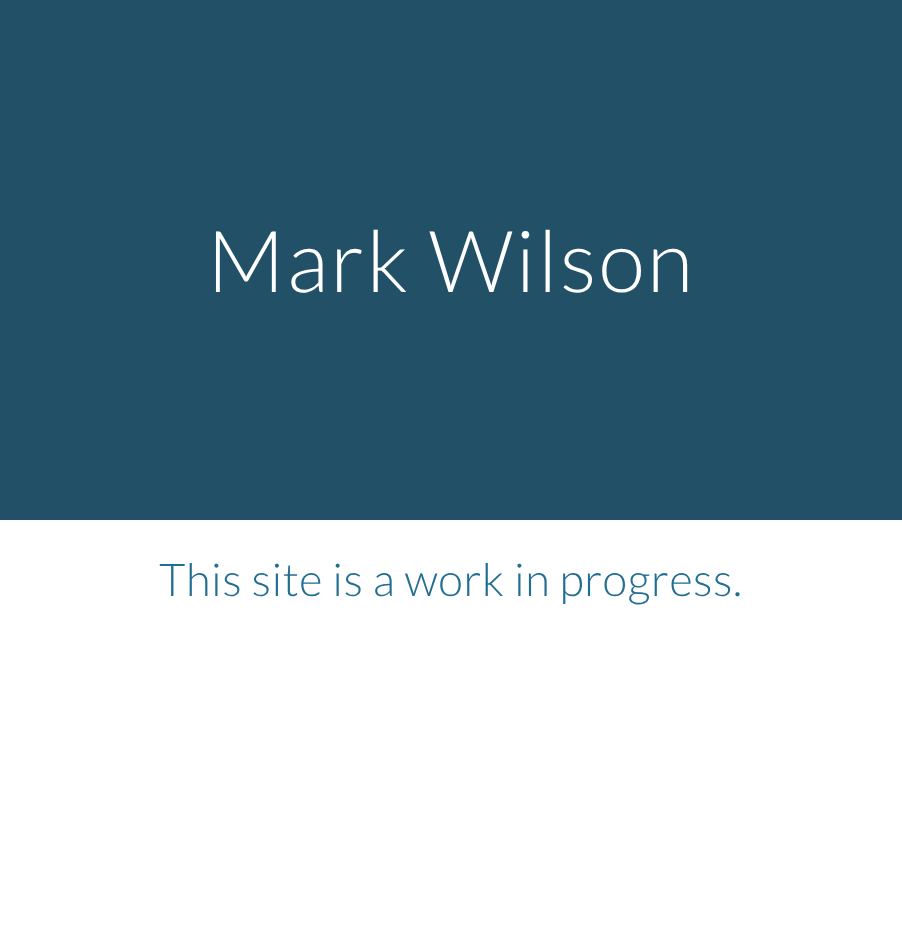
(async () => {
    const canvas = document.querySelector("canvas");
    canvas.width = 902;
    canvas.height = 946;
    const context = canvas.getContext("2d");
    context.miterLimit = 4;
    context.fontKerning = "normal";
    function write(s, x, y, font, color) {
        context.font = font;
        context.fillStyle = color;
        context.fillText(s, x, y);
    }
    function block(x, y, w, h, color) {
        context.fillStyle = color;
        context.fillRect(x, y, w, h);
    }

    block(0, 0, 902, 946, "rgb(255, 255, 255)");
    block(0, 0, 902, 520, "rgb(34, 80, 102)");
    context.letterSpacing = "2px";
    write("Mark Wilson", 207, 292, "300 85.5px Lato", "rgb(255, 255, 255)");
    context.letterSpacing = "0.5px";
    write("This site is a work in progress.", 159, 596, "300 45.3px Lato", "rgb(34, 110, 147)");
})();
